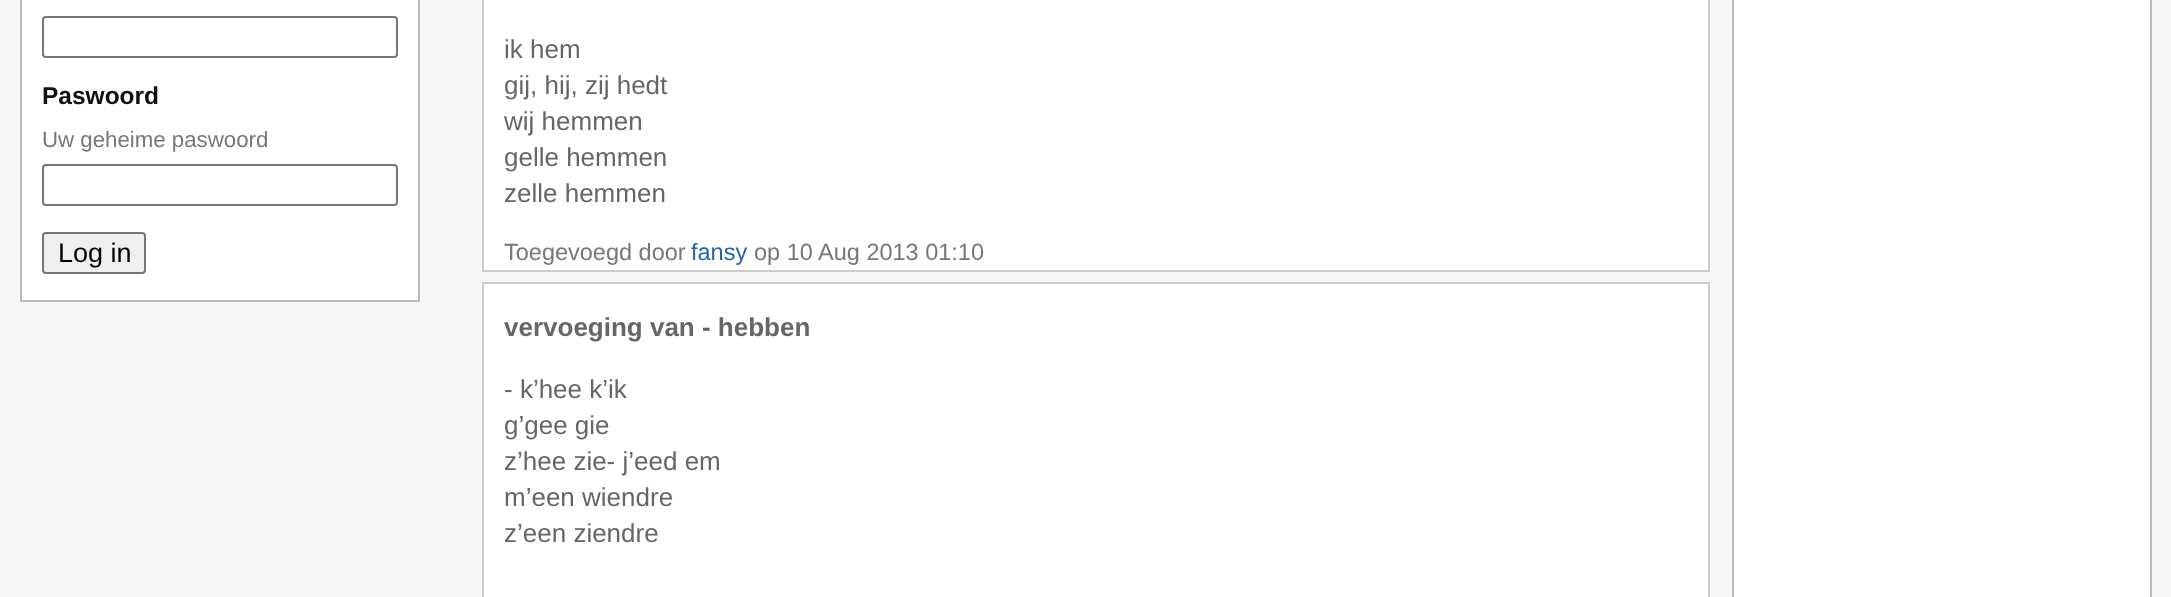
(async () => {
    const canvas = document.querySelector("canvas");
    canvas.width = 2171;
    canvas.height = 597;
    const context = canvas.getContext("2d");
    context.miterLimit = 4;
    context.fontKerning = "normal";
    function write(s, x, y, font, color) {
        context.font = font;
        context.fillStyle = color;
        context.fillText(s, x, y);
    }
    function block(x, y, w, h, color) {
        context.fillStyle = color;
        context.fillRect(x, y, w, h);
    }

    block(0, 0, 2171, 597, "rgb(248, 248, 248)");
    context.fillStyle = "rgb(255, 255, 255)";
    context.beginPath();
    context.rect(21, -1, 398, 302);
    context.fill();
    context.strokeStyle = "rgb(187, 187, 187)";
    context.lineWidth = 2;
    context.stroke();
    context.beginPath();
    context.roundRect(43, 17, 354, 40, 3);
    context.strokeStyle = "rgb(118, 118, 118)";
    context.stroke();
    write("Paswoord", 42, 104, "bold 24.5px Liberation Sans", "rgb(17, 17, 17)");
    write("Uw geheime paswoord", 42, 147, "22.25px Liberation Sans", "rgb(119, 119, 119)");
    context.beginPath();
    context.roundRect(43, 165, 354, 40, 3);
    context.stroke();
    context.fillStyle = "rgb(239, 239, 239)";
    context.beginPath();
    context.roundRect(43, 233, 102, 40, 3);
    context.fill();
    context.stroke();
    write("Log in", 58, 262, "27px Liberation Sans", "rgb(0, 0, 0)");
    context.fillStyle = "rgb(255, 255, 255)";
    context.beginPath();
    context.rect(483, -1, 1226, 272);
    context.fill();
    context.strokeStyle = "rgb(204, 204, 204)";
    context.stroke();
    write("ik hem", 504, 58, "26px Liberation Sans", "rgb(102, 102, 102)");
    write("gij, hij, zij hedt", 504, 94, "26px Liberation Sans", "rgb(102, 102, 102)");
    write("wij hemmen", 504, 130, "26px Liberation Sans", "rgb(102, 102, 102)");
    write("gelle hemmen", 504, 166, "26px Liberation Sans", "rgb(102, 102, 102)");
    write("zelle hemmen", 504, 202, "26px Liberation Sans", "rgb(102, 102, 102)");
    write("Toegevoegd door", 504, 260, "23.5px Liberation Sans", "rgb(119, 119, 119)");
    write("fansy", 691, 260, "23.5px Liberation Sans", "rgb(39, 99, 165)");
    write("op 10 Aug 2013 01:10", 754, 260, "23.5px Liberation Sans", "rgb(119, 119, 119)");
    context.fillStyle = "rgb(255, 255, 255)";
    context.beginPath();
    context.rect(483, 283, 1226, 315);
    context.fill();
    context.stroke();
    write("vervoeging van - hebben", 504, 336, "bold 26px Liberation Sans", "rgb(102, 102, 102)");
    write("- k’hee k’ik", 504, 398, "26px Liberation Sans", "rgb(102, 102, 102)");
    write("g’gee gie", 504, 434, "26px Liberation Sans", "rgb(102, 102, 102)");
    write("z’hee zie- j’eed em", 504, 470, "26px Liberation Sans", "rgb(102, 102, 102)");
    write("m’een wiendre", 504, 506, "26px Liberation Sans", "rgb(102, 102, 102)");
    write("z’een ziendre", 504, 542, "26px Liberation Sans", "rgb(102, 102, 102)");
    context.fillStyle = "rgb(255, 255, 255)";
    context.beginPath();
    context.rect(1733, -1, 418, 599);
    context.fill();
    context.strokeStyle = "rgb(187, 187, 187)";
    context.stroke();
})();
